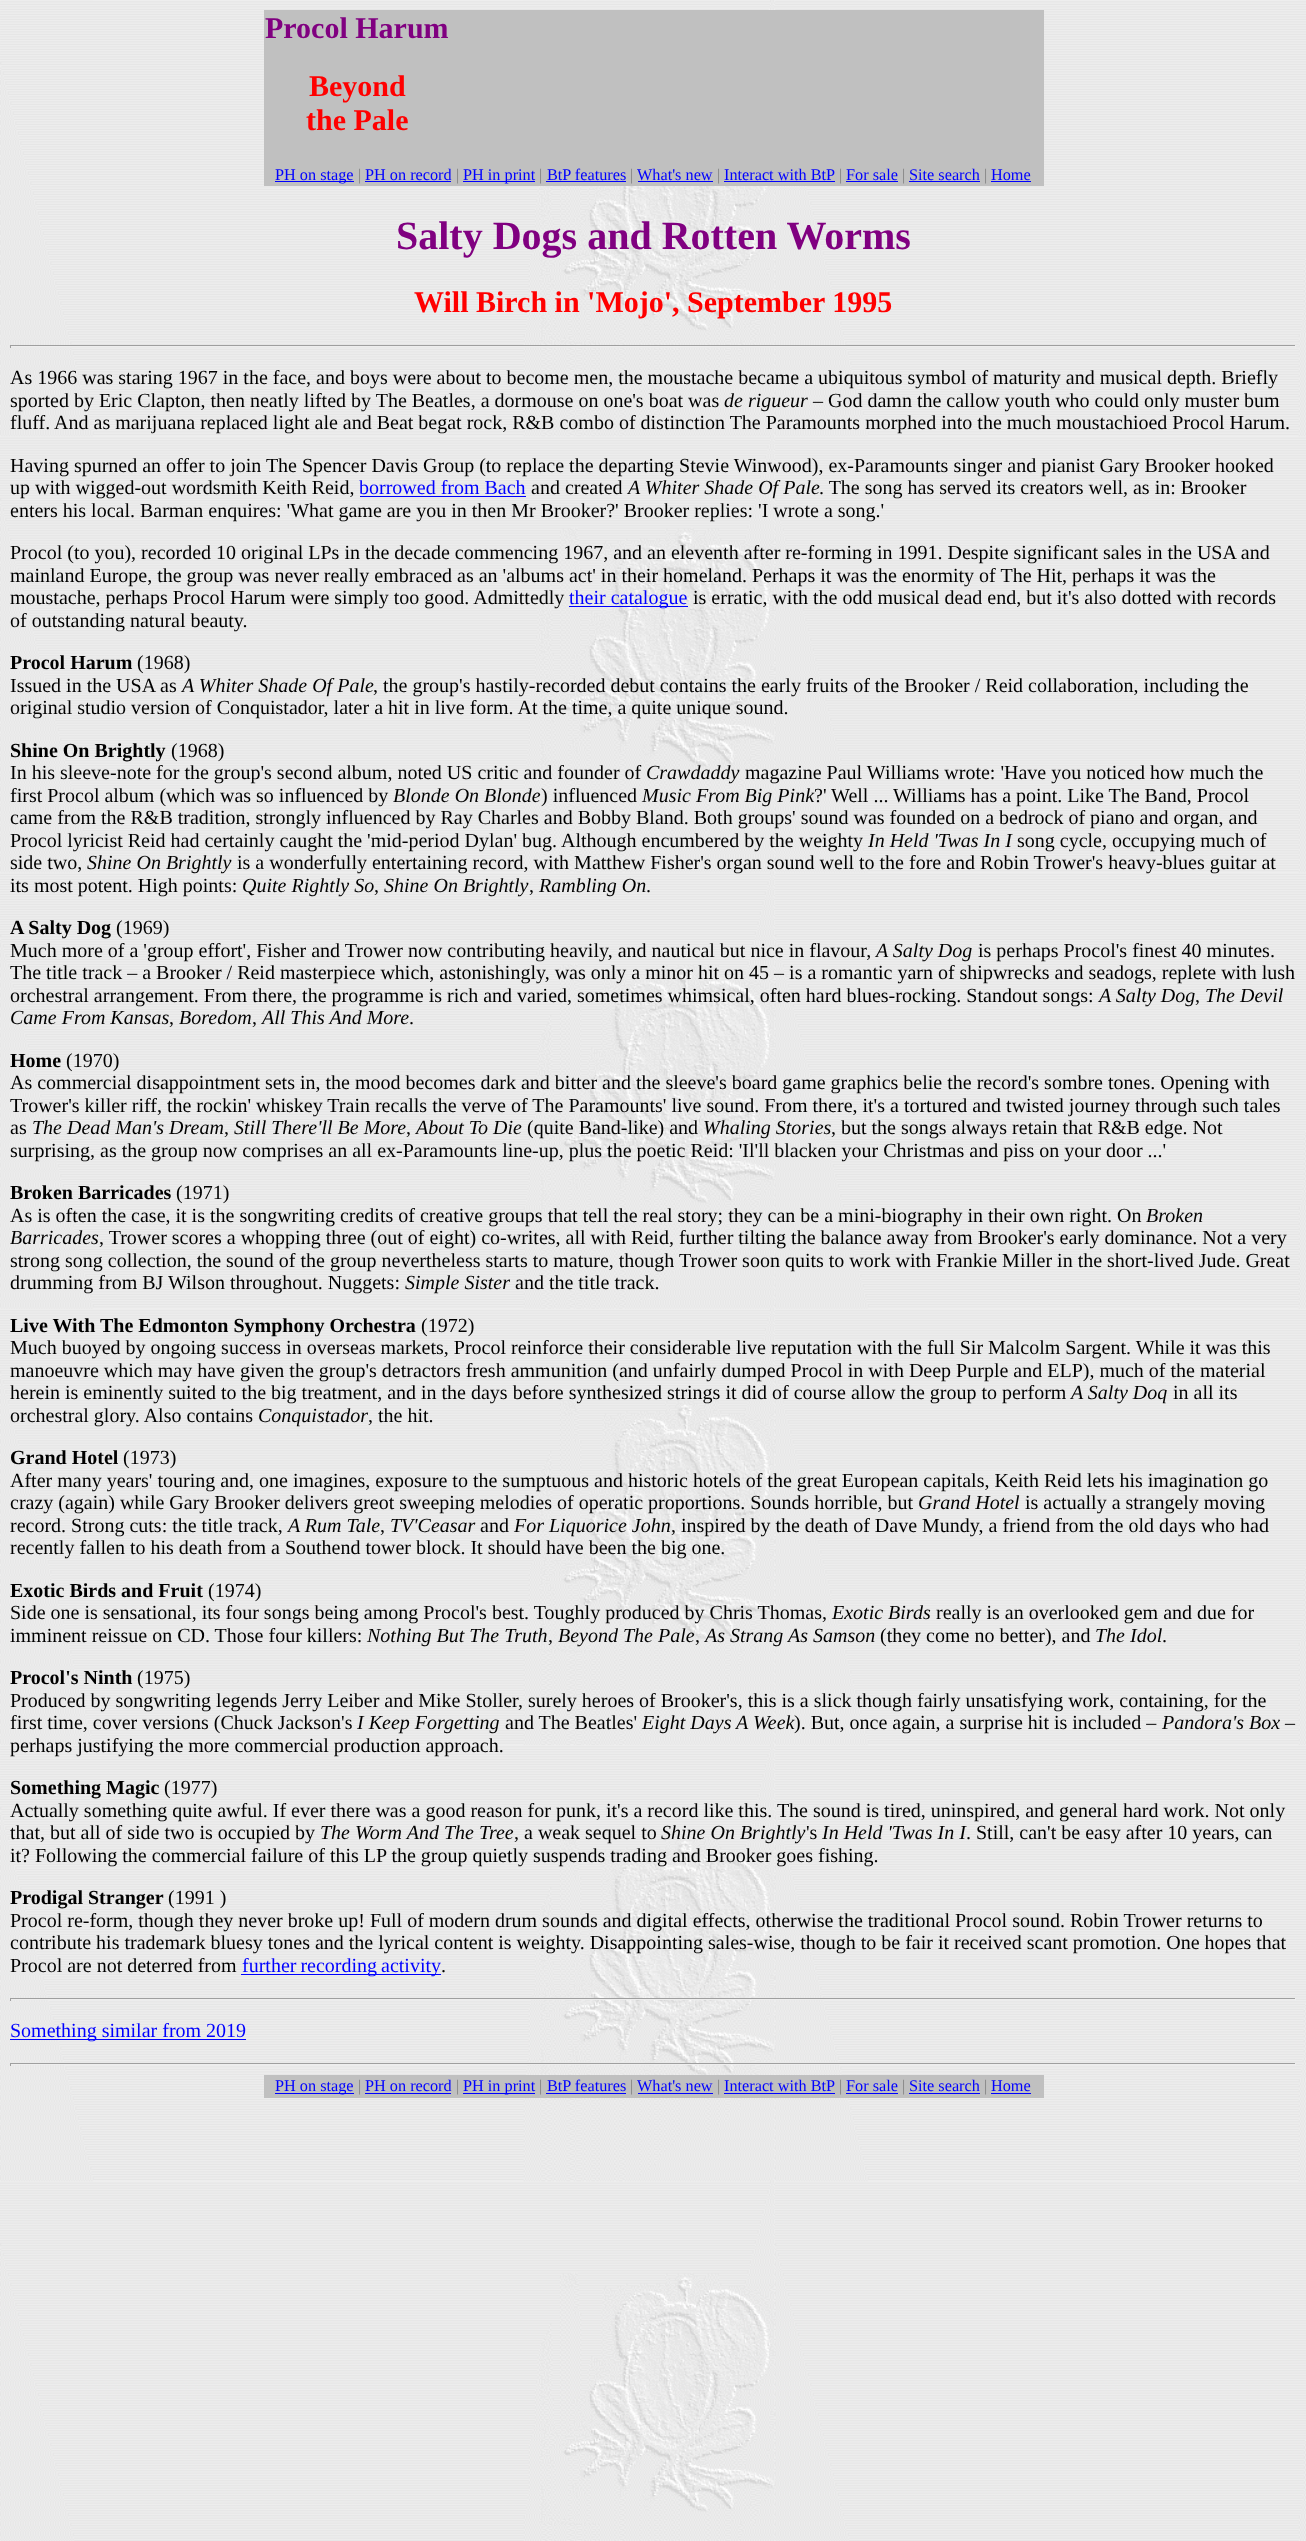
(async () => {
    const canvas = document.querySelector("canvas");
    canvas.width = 1306;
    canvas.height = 2541;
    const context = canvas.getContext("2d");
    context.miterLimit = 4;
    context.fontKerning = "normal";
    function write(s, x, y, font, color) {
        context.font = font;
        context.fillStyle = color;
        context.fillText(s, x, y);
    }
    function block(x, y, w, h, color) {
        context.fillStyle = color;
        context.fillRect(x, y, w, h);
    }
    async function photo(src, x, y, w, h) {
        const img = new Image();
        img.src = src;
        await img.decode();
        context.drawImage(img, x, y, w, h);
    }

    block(0, 0, 1306, 2541, "rgb(255, 255, 255)");
    await photo("media/1.png", 0, 0, 1306, 2541);
    block(264, 10, 780, 176, "rgb(192, 192, 192)");
    write("Procol Harum", 265, 38, "bold 30px Liberation Serif", "rgb(128, 0, 128)");
    write("Beyond", 309, 96, "bold 30px Liberation Serif", "rgb(255, 0, 0)");
    write("the Pale", 306, 130, "bold 30px Liberation Serif", "rgb(255, 0, 0)");
    block(275, 181, 79, 1, "rgb(0, 0, 255)");
    write("PH on stage", 275, 180, "16.25px Liberation Serif", "rgb(0, 0, 255)");
    write("|", 358, 180, "16.25px Liberation Serif", "rgb(128, 128, 128)");
    write("PH on record", 365, 180, "16.25px Liberation Serif", "rgb(0, 0, 255)");
    block(365, 181, 86, 1, "rgb(0, 0, 255)");
    write("|", 456, 180, "16.25px Liberation Serif", "rgb(128, 128, 128)");
    block(463, 181, 72, 1, "rgb(0, 0, 255)");
    write("PH in print", 463, 180, "16.25px Liberation Serif", "rgb(0, 0, 255)");
    write("|", 539, 180, "16.25px Liberation Serif", "rgb(128, 128, 128)");
    write("BtP features", 547, 180, "16.25px Liberation Serif", "rgb(0, 0, 255)");
    block(546, 181, 80, 1, "rgb(0, 0, 255)");
    write("|", 630, 180, "16.25px Liberation Serif", "rgb(128, 128, 128)");
    write("What's new", 637, 180, "16.25px Liberation Serif", "rgb(0, 0, 255)");
    block(638, 181, 75, 1, "rgb(0, 0, 255)");
    write("|", 717, 180, "16.25px Liberation Serif", "rgb(128, 128, 128)");
    write("Interact with BtP", 724, 180, "16.25px Liberation Serif", "rgb(0, 0, 255)");
    block(724, 181, 111, 1, "rgb(0, 0, 255)");
    write("|", 839, 180, "16.25px Liberation Serif", "rgb(128, 128, 128)");
    write("For sale", 846, 180, "16.25px Liberation Serif", "rgb(0, 0, 255)");
    block(846, 181, 52, 1, "rgb(0, 0, 255)");
    write("|", 902, 180, "16.25px Liberation Serif", "rgb(128, 128, 128)");
    write("Site search", 909, 180, "16.25px Liberation Serif", "rgb(0, 0, 255)");
    block(909, 181, 71, 1, "rgb(0, 0, 255)");
    write("|", 984, 180, "16.25px Liberation Serif", "rgb(128, 128, 128)");
    write("Home", 991, 180, "16.25px Liberation Serif", "rgb(0, 0, 255)");
    block(991, 181, 40, 1, "rgb(0, 0, 255)");
    write("Salty Dogs and Rotten Worms", 396, 249, "bold 40px Liberation Serif", "rgb(128, 0, 128)");
    write("Will Birch in 'Mojo', September 1995", 414, 312, "bold 30px Liberation Serif", "rgb(255, 0, 0)");
    block(10, 345, 1286, 1, "rgb(159, 159, 159)");
    block(1295, 345, 1, 3, "rgb(238, 238, 238)");
    block(10, 346, 1286, 1, "rgb(238, 238, 238)");
    block(10, 345, 1, 3, "rgb(159, 159, 159)");
    write("As 1966 was staring 1967 in the face, and boys were about to become men, the moustache became a ubiquitous symbol of maturity and musical depth. Briefly", 10, 384, "20px Liberation Serif", "rgb(0, 0, 0)");
    write("sported by Eric Clapton, then neatly lifted by The Beatles, a dormouse on one's boat was", 10, 407, "20px Liberation Serif", "rgb(0, 0, 0)");
    write("de rigueur –", 724, 407, "italic 20px Liberation Serif", "rgb(0, 0, 0)");
    write("God damn the callow youth who could only muster bum", 828, 407, "20px Liberation Serif", "rgb(0, 0, 0)");
    write("fluff. And as marijuana replaced light ale and Beat begat rock, R&B combo of distinction The Paramounts morphed into the much moustachioed Procol Harum.", 10, 429, "20px Liberation Serif", "rgb(0, 0, 0)");
    write("Having spurned an offer to join The Spencer Davis Group (to replace the departing Stevie Winwood), ex-Paramounts singer and pianist Gary Brooker hooked", 10, 472, "20px Liberation Serif", "rgb(0, 0, 0)");
    write("up with wigged-out wordsmith Keith Reid,", 10, 494, "20px Liberation Serif", "rgb(0, 0, 0)");
    write("borrowed from Bach", 359, 494, "20px Liberation Serif", "rgb(0, 0, 255)");
    block(360, 496, 166, 1, "rgb(0, 0, 255)");
    write("and created", 531, 494, "20px Liberation Serif", "rgb(0, 0, 0)");
    write("A Whiter Shade Of Pale", 628, 494, "italic 20px Liberation Serif", "rgb(0, 0, 0)");
    write(". The song has served its creators well, as in: Brooker", 819, 494, "20px Liberation Serif", "rgb(0, 0, 0)");
    write("enters his local. Barman enquires: 'What game are you in then Mr Brooker?' Brooker replies: 'I wrote a song.'", 10, 517, "20px Liberation Serif", "rgb(0, 0, 0)");
    write("Procol (to you), recorded 10 original LPs in the decade commencing 1967, and an eleventh after re-forming in 1991. Despite significant sales in the USA and", 10, 559, "20px Liberation Serif", "rgb(0, 0, 0)");
    write("mainland Europe, the group was never really embraced as an 'albums act' in their homeland. Perhaps it was the enormity of The Hit, perhaps it was the", 10, 582, "20px Liberation Serif", "rgb(0, 0, 0)");
    write("moustache, perhaps Procol Harum were simply too good. Admittedly", 10, 604, "20px Liberation Serif", "rgb(0, 0, 0)");
    block(569, 606, 119, 1, "rgb(0, 0, 255)");
    write("their catalogue", 569, 604, "20px Liberation Serif", "rgb(0, 0, 255)");
    write("is erratic, with the odd musical dead end, but it's also dotted with records", 693, 604, "20px Liberation Serif", "rgb(0, 0, 0)");
    write("of outstanding natural beauty.", 10, 627, "20px Liberation Serif", "rgb(0, 0, 0)");
    write("Procol Harum", 10, 669, "bold 20px Liberation Serif", "rgb(0, 0, 0)");
    write("(1968)", 137, 669, "20px Liberation Serif", "rgb(0, 0, 0)");
    write("Issued in the USA as", 10, 692, "20px Liberation Serif", "rgb(0, 0, 0)");
    write("A Whiter Shade Of Pale", 182, 692, "italic 20px Liberation Serif", "rgb(0, 0, 0)");
    write(", the group's hastily-recorded debut contains the early fruits of the Brooker / Reid collaboration, including the", 373, 692, "20px Liberation Serif", "rgb(0, 0, 0)");
    write("original studio version of Conquistador, later a hit in live form. At the time, a quite unique sound.", 10, 714, "20px Liberation Serif", "rgb(0, 0, 0)");
    write("Shine On Brightly", 10, 757, "bold 20px Liberation Serif", "rgb(0, 0, 0)");
    write("(1968)", 171, 757, "20px Liberation Serif", "rgb(0, 0, 0)");
    write("In his sleeve-note for the group's second album, noted US critic and founder of", 10, 779, "20px Liberation Serif", "rgb(0, 0, 0)");
    write("Crawdaddy", 646, 779, "italic 20px Liberation Serif", "rgb(0, 0, 0)");
    write("magazine Paul Williams wrote: 'Have you noticed how much the", 745, 779, "20px Liberation Serif", "rgb(0, 0, 0)");
    write("first Procol album (which was so influenced by", 10, 802, "20px Liberation Serif", "rgb(0, 0, 0)");
    write("Blonde On Blonde", 393, 802, "italic 20px Liberation Serif", "rgb(0, 0, 0)");
    write(") influenced", 541, 802, "20px Liberation Serif", "rgb(0, 0, 0)");
    write("Music From Big Pink", 642, 802, "italic 20px Liberation Serif", "rgb(0, 0, 0)");
    write("?' Well ... Williams has a point. Like The Band, Procol", 814, 802, "20px Liberation Serif", "rgb(0, 0, 0)");
    write("came from the R&B tradition, strongly influenced by Ray Charles and Bobby Bland. Both groups' sound was founded on a bedrock of piano and organ, and", 10, 824, "20px Liberation Serif", "rgb(0, 0, 0)");
    write("Procol lyricist Reid had certainly caught the 'mid-period Dylan' bug. Although encumbered by the weighty", 10, 847, "20px Liberation Serif", "rgb(0, 0, 0)");
    write("In Held 'Twas In I", 868, 847, "italic 20px Liberation Serif", "rgb(0, 0, 0)");
    write("song cycle, occupying much of", 1017, 847, "20px Liberation Serif", "rgb(0, 0, 0)");
    write("side two,", 10, 869, "20px Liberation Serif", "rgb(0, 0, 0)");
    write("Shine On Brightly", 87, 869, "italic 20px Liberation Serif", "rgb(0, 0, 0)");
    write("is a wonderfully entertaining record, with Matthew Fisher's organ sound well to the fore and Robin Trower's heavy-blues guitar at", 237, 869, "20px Liberation Serif", "rgb(0, 0, 0)");
    write("its most potent. High points:", 10, 892, "20px Liberation Serif", "rgb(0, 0, 0)");
    write("Quite Rightly So", 242, 892, "italic 20px Liberation Serif", "rgb(0, 0, 0)");
    write(",", 374, 892, "20px Liberation Serif", "rgb(0, 0, 0)");
    write("Shine On Brightly", 384, 892, "italic 20px Liberation Serif", "rgb(0, 0, 0)");
    write(",", 529, 892, "20px Liberation Serif", "rgb(0, 0, 0)");
    write("Rambling On", 539, 892, "italic 20px Liberation Serif", "rgb(0, 0, 0)");
    write(".", 646, 892, "20px Liberation Serif", "rgb(0, 0, 0)");
    write("A Salty Dog", 10, 934, "bold 20px Liberation Serif", "rgb(0, 0, 0)");
    write("(1969)", 116, 934, "20px Liberation Serif", "rgb(0, 0, 0)");
    write("Much more of a 'group effort', Fisher and Trower now contributing heavily, and nautical but nice in flavour,", 10, 957, "20px Liberation Serif", "rgb(0, 0, 0)");
    write("A Salty Dog", 876, 957, "italic 20px Liberation Serif", "rgb(0, 0, 0)");
    write("is perhaps Procol's finest 40 minutes.", 978, 957, "20px Liberation Serif", "rgb(0, 0, 0)");
    write("The title track – a Brooker / Reid masterpiece which, astonishingly, was only a minor hit on 45 – is a romantic yarn of shipwrecks and seadogs, replete with lush", 10, 979, "20px Liberation Serif", "rgb(0, 0, 0)");
    write("orchestral arrangement. From there, the programme is rich and varied, sometimes whimsical, often hard blues-rocking. Standout songs:", 10, 1002, "20px Liberation Serif", "rgb(0, 0, 0)");
    write("A Salty Dog", 1099, 1002, "italic 20px Liberation Serif", "rgb(0, 0, 0)");
    write(",", 1195, 1002, "20px Liberation Serif", "rgb(0, 0, 0)");
    write("The Devil", 1205, 1002, "italic 20px Liberation Serif", "rgb(0, 0, 0)");
    write("Came From Kansas", 10, 1024, "italic 20px Liberation Serif", "rgb(0, 0, 0)");
    write(",", 169, 1024, "20px Liberation Serif", "rgb(0, 0, 0)");
    write("Boredom", 179, 1024, "italic 20px Liberation Serif", "rgb(0, 0, 0)");
    write(",", 252, 1024, "20px Liberation Serif", "rgb(0, 0, 0)");
    write("All This And More", 262, 1024, "italic 20px Liberation Serif", "rgb(0, 0, 0)");
    write(".", 409, 1024, "20px Liberation Serif", "rgb(0, 0, 0)");
    write("Home", 10, 1067, "bold 20px Liberation Serif", "rgb(0, 0, 0)");
    write("(1970)", 66, 1067, "20px Liberation Serif", "rgb(0, 0, 0)");
    write("As commercial disappointment sets in, the mood becomes dark and bitter and the sleeve's board game graphics belie the record's sombre tones. Opening with", 10, 1089, "20px Liberation Serif", "rgb(0, 0, 0)");
    write("Trower's killer riff, the rockin' whiskey Train recalls the verve of The Paramounts' live sound. From there, it's a tortured and twisted journey through such tales", 10, 1112, "20px Liberation Serif", "rgb(0, 0, 0)");
    write("as", 10, 1134, "20px Liberation Serif", "rgb(0, 0, 0)");
    write("The Dead Man's Dream", 32, 1134, "italic 20px Liberation Serif", "rgb(0, 0, 0)");
    write(",", 224, 1134, "20px Liberation Serif", "rgb(0, 0, 0)");
    write("Still There'll Be More", 234, 1134, "italic 20px Liberation Serif", "rgb(0, 0, 0)");
    write(",", 406, 1134, "20px Liberation Serif", "rgb(0, 0, 0)");
    write("About To Die", 416, 1134, "italic 20px Liberation Serif", "rgb(0, 0, 0)");
    write("(quite Band-like) and", 527, 1134, "20px Liberation Serif", "rgb(0, 0, 0)");
    write("Whaling Stories", 703, 1134, "italic 20px Liberation Serif", "rgb(0, 0, 0)");
    write(", but the songs always retain that R&B edge. Not", 831, 1134, "20px Liberation Serif", "rgb(0, 0, 0)");
    write("surprising, as the group now comprises an all ex-Paramounts line-up, plus the poetic Reid: 'Il'll blacken your Christmas and piss on your door ...'", 10, 1157, "20px Liberation Serif", "rgb(0, 0, 0)");
    write("Broken Barricades", 10, 1199, "bold 20px Liberation Serif", "rgb(0, 0, 0)");
    write("(1971)", 176, 1199, "20px Liberation Serif", "rgb(0, 0, 0)");
    write("As is often the case, it is the songwriting credits of creative groups that tell the real story; they can be a mini-biography in their own right. On", 10, 1222, "20px Liberation Serif", "rgb(0, 0, 0)");
    write("Broken", 1146, 1222, "italic 20px Liberation Serif", "rgb(0, 0, 0)");
    write("Barricades", 10, 1244, "italic 20px Liberation Serif", "rgb(0, 0, 0)");
    write(", Trower scores a whopping three (out of eight) co-writes, all with Reid, further tilting the balance away from Brooker's early dominance. Not a very", 99, 1244, "20px Liberation Serif", "rgb(0, 0, 0)");
    write("strong song collection, the sound of the group nevertheless starts to mature, though Trower soon quits to work with Frankie Miller in the short-lived Jude. Great", 10, 1267, "20px Liberation Serif", "rgb(0, 0, 0)");
    write("drumming from BJ Wilson throughout. Nuggets:", 10, 1289, "20px Liberation Serif", "rgb(0, 0, 0)");
    write("Simple Sister", 405, 1289, "italic 20px Liberation Serif", "rgb(0, 0, 0)");
    write("and the title track.", 515, 1289, "20px Liberation Serif", "rgb(0, 0, 0)");
    write("Live With The Edmonton Symphony Orchestra", 10, 1332, "bold 20px Liberation Serif", "rgb(0, 0, 0)");
    write("(1972)", 421, 1332, "20px Liberation Serif", "rgb(0, 0, 0)");
    write("Much buoyed by ongoing success in overseas markets, Procol reinforce their considerable live reputation with the full Sir Malcolm Sargent. While it was this", 10, 1354, "20px Liberation Serif", "rgb(0, 0, 0)");
    write("manoeuvre which may have given the group's detractors fresh ammunition (and unfairly dumped Procol in with Deep Purple and ELP), much of the material", 10, 1377, "20px Liberation Serif", "rgb(0, 0, 0)");
    write("herein is eminently suited to the big treatment, and in the days before synthesized strings it did of course allow the group to perform", 10, 1399, "20px Liberation Serif", "rgb(0, 0, 0)");
    write("A Salty Doq", 1071, 1399, "italic 20px Liberation Serif", "rgb(0, 0, 0)");
    write("in all its", 1173, 1399, "20px Liberation Serif", "rgb(0, 0, 0)");
    write("orchestral glory. Also contains", 10, 1422, "20px Liberation Serif", "rgb(0, 0, 0)");
    write("Conquistador", 258, 1422, "italic 20px Liberation Serif", "rgb(0, 0, 0)");
    write(", the hit.", 368, 1422, "20px Liberation Serif", "rgb(0, 0, 0)");
    write("Grand Hotel", 10, 1464, "bold 20px Liberation Serif", "rgb(0, 0, 0)");
    write("(1973)", 123, 1464, "20px Liberation Serif", "rgb(0, 0, 0)");
    write("After many years' touring and, one imagines, exposure to the sumptuous and historic hotels of the great European capitals, Keith Reid lets his imagination go", 10, 1487, "20px Liberation Serif", "rgb(0, 0, 0)");
    write("crazy (again) while Gary Brooker delivers greot sweeping melodies of operatic proportions. Sounds horrible, but", 10, 1509, "20px Liberation Serif", "rgb(0, 0, 0)");
    write("Grand Hotel", 918, 1509, "italic 20px Liberation Serif", "rgb(0, 0, 0)");
    write("is actually a strangely moving", 1025, 1509, "20px Liberation Serif", "rgb(0, 0, 0)");
    write("record. Strong cuts: the title track,", 10, 1532, "20px Liberation Serif", "rgb(0, 0, 0)");
    write("A Rum Tale", 288, 1532, "italic 20px Liberation Serif", "rgb(0, 0, 0)");
    write(",", 380, 1532, "20px Liberation Serif", "rgb(0, 0, 0)");
    write("TV'Ceasar", 390, 1532, "italic 20px Liberation Serif", "rgb(0, 0, 0)");
    write("and", 480, 1532, "20px Liberation Serif", "rgb(0, 0, 0)");
    write("For Liquorice John", 514, 1532, "italic 20px Liberation Serif", "rgb(0, 0, 0)");
    write(", inspired by the death of Dave Mundy, a friend from the old days who had", 671, 1532, "20px Liberation Serif", "rgb(0, 0, 0)");
    write("recently fallen to his death from a Southend tower block. It should have been the big one.", 10, 1554, "20px Liberation Serif", "rgb(0, 0, 0)");
    write("Exotic Birds and Fruit", 10, 1597, "bold 20px Liberation Serif", "rgb(0, 0, 0)");
    write("(1974)", 208, 1597, "20px Liberation Serif", "rgb(0, 0, 0)");
    write("Side one is sensational, its four songs being among Procol's best. Toughly produced by Chris Thomas,", 10, 1619, "20px Liberation Serif", "rgb(0, 0, 0)");
    write("Exotic Birds", 832, 1619, "italic 20px Liberation Serif", "rgb(0, 0, 0)");
    write("really is an overlooked gem and due for", 936, 1619, "20px Liberation Serif", "rgb(0, 0, 0)");
    write("imminent reissue on CD. Those four killers:", 10, 1642, "20px Liberation Serif", "rgb(0, 0, 0)");
    write("Nothing But The Truth", 367, 1642, "italic 20px Liberation Serif", "rgb(0, 0, 0)");
    write(",", 548, 1642, "20px Liberation Serif", "rgb(0, 0, 0)");
    write("Beyond The Pale", 558, 1642, "italic 20px Liberation Serif", "rgb(0, 0, 0)");
    write(",", 695, 1642, "20px Liberation Serif", "rgb(0, 0, 0)");
    write("As Strang As Samson", 705, 1642, "italic 20px Liberation Serif", "rgb(0, 0, 0)");
    write("(they come no better), and", 880, 1642, "20px Liberation Serif", "rgb(0, 0, 0)");
    write("The Idol", 1095, 1642, "italic 20px Liberation Serif", "rgb(0, 0, 0)");
    write(".", 1162, 1642, "20px Liberation Serif", "rgb(0, 0, 0)");
    write("Procol's Ninth", 10, 1684, "bold 20px Liberation Serif", "rgb(0, 0, 0)");
    write("(1975)", 137, 1684, "20px Liberation Serif", "rgb(0, 0, 0)");
    write("Produced by songwriting legends Jerry Leiber and Mike Stoller, surely heroes of Brooker's, this is a slick though fairly unsatisfying work, containing, for the", 10, 1707, "20px Liberation Serif", "rgb(0, 0, 0)");
    write("first time, cover versions (Chuck Jackson's", 10, 1729, "20px Liberation Serif", "rgb(0, 0, 0)");
    write("I Keep Forgetting", 357, 1729, "italic 20px Liberation Serif", "rgb(0, 0, 0)");
    write("and The Beatles'", 505, 1729, "20px Liberation Serif", "rgb(0, 0, 0)");
    write("Eight Days A Week", 642, 1729, "italic 20px Liberation Serif", "rgb(0, 0, 0)");
    write("). But, once again, a surprise hit is included –", 794, 1729, "20px Liberation Serif", "rgb(0, 0, 0)");
    write("Pandora's Box", 1162, 1729, "italic 20px Liberation Serif", "rgb(0, 0, 0)");
    write("–", 1285, 1729, "20px Liberation Serif", "rgb(0, 0, 0)");
    write("perhaps justifying the more commercial production approach.", 10, 1752, "20px Liberation Serif", "rgb(0, 0, 0)");
    write("Something Magic", 10, 1794, "bold 20px Liberation Serif", "rgb(0, 0, 0)");
    write("(1977)", 164, 1794, "20px Liberation Serif", "rgb(0, 0, 0)");
    write("Actually something quite awful. If ever there was a good reason for punk, it's a record like this. The sound is tired, uninspired, and general hard work. Not only", 10, 1817, "20px Liberation Serif", "rgb(0, 0, 0)");
    write("that, but all of side two is occupied by", 10, 1839, "20px Liberation Serif", "rgb(0, 0, 0)");
    write("The Worm And The Tree", 320, 1839, "italic 20px Liberation Serif", "rgb(0, 0, 0)");
    write(", a weak sequel to", 514, 1839, "20px Liberation Serif", "rgb(0, 0, 0)");
    write("Shine On Brightly", 661, 1839, "italic 20px Liberation Serif", "rgb(0, 0, 0)");
    write("'s", 806, 1839, "20px Liberation Serif", "rgb(0, 0, 0)");
    write("In Held 'Twas In I", 822, 1839, "italic 20px Liberation Serif", "rgb(0, 0, 0)");
    write(". Still, can't be easy after 10 years, can", 966, 1839, "20px Liberation Serif", "rgb(0, 0, 0)");
    write("it? Following the commercial failure of this LP the group quietly suspends trading and Brooker goes fishing.", 10, 1862, "20px Liberation Serif", "rgb(0, 0, 0)");
    write("Prodigal Stranger", 10, 1904, "bold 20px Liberation Serif", "rgb(0, 0, 0)");
    write("(1991 )", 168, 1904, "20px Liberation Serif", "rgb(0, 0, 0)");
    write("Procol re-form, though they never broke up! Full of modern drum sounds and digital effects, otherwise the traditional Procol sound. Robin Trower returns to", 10, 1927, "20px Liberation Serif", "rgb(0, 0, 0)");
    write("contribute his trademark bluesy tones and the lyrical content is weighty. Disappointing sales-wise, though to be fair it received scant promotion. One hopes that", 10, 1949, "20px Liberation Serif", "rgb(0, 0, 0)");
    write("Procol are not deterred from", 10, 1972, "20px Liberation Serif", "rgb(0, 0, 0)");
    block(241, 1974, 200, 1, "rgb(0, 0, 255)");
    context.wordSpacing = "-1px";
    write("further recording activity", 242, 1972, "20px Liberation Serif", "rgb(0, 0, 255)");
    context.wordSpacing = "0px";
    write(".", 441, 1972, "20px Liberation Serif", "rgb(0, 0, 0)");
    block(10, 1998, 1286, 1, "rgb(159, 159, 159)");
    block(1295, 1998, 1, 3, "rgb(238, 238, 238)");
    block(10, 1999, 1286, 1, "rgb(238, 238, 238)");
    block(10, 1998, 1, 3, "rgb(159, 159, 159)");
    block(10, 2039, 236, 1, "rgb(0, 0, 255)");
    write("Something similar from 2019", 10, 2037, "20px Liberation Serif", "rgb(0, 0, 255)");
    block(10, 2063, 1286, 1, "rgb(159, 159, 159)");
    block(1295, 2063, 1, 3, "rgb(238, 238, 238)");
    block(10, 2064, 1286, 1, "rgb(238, 238, 238)");
    block(10, 2063, 1, 3, "rgb(159, 159, 159)");
    block(264, 2075, 780, 23, "rgb(192, 192, 192)");
    block(275, 2093, 79, 1, "rgb(0, 0, 255)");
    write("PH on stage", 275, 2091, "16.25px Liberation Serif", "rgb(0, 0, 255)");
    write("|", 358, 2091, "16.25px Liberation Serif", "rgb(128, 128, 128)");
    write("PH on record", 365, 2091, "16.25px Liberation Serif", "rgb(0, 0, 255)");
    block(365, 2093, 86, 1, "rgb(0, 0, 255)");
    write("|", 456, 2091, "16.25px Liberation Serif", "rgb(128, 128, 128)");
    block(463, 2093, 72, 1, "rgb(0, 0, 255)");
    write("PH in print", 463, 2091, "16.25px Liberation Serif", "rgb(0, 0, 255)");
    write("|", 539, 2091, "16.25px Liberation Serif", "rgb(128, 128, 128)");
    write("BtP features", 547, 2091, "16.25px Liberation Serif", "rgb(0, 0, 255)");
    block(546, 2093, 80, 1, "rgb(0, 0, 255)");
    write("|", 630, 2091, "16.25px Liberation Serif", "rgb(128, 128, 128)");
    write("What's new", 637, 2091, "16.25px Liberation Serif", "rgb(0, 0, 255)");
    block(638, 2093, 75, 1, "rgb(0, 0, 255)");
    write("|", 717, 2091, "16.25px Liberation Serif", "rgb(128, 128, 128)");
    write("Interact with BtP", 724, 2091, "16.25px Liberation Serif", "rgb(0, 0, 255)");
    block(724, 2093, 111, 1, "rgb(0, 0, 255)");
    write("|", 839, 2091, "16.25px Liberation Serif", "rgb(128, 128, 128)");
    write("For sale", 846, 2091, "16.25px Liberation Serif", "rgb(0, 0, 255)");
    block(846, 2093, 52, 1, "rgb(0, 0, 255)");
    write("|", 902, 2091, "16.25px Liberation Serif", "rgb(128, 128, 128)");
    write("Site search", 909, 2091, "16.25px Liberation Serif", "rgb(0, 0, 255)");
    block(909, 2093, 71, 1, "rgb(0, 0, 255)");
    write("|", 984, 2091, "16.25px Liberation Serif", "rgb(128, 128, 128)");
    write("Home", 991, 2091, "16.25px Liberation Serif", "rgb(0, 0, 255)");
    block(991, 2093, 40, 1, "rgb(0, 0, 255)");
})();
